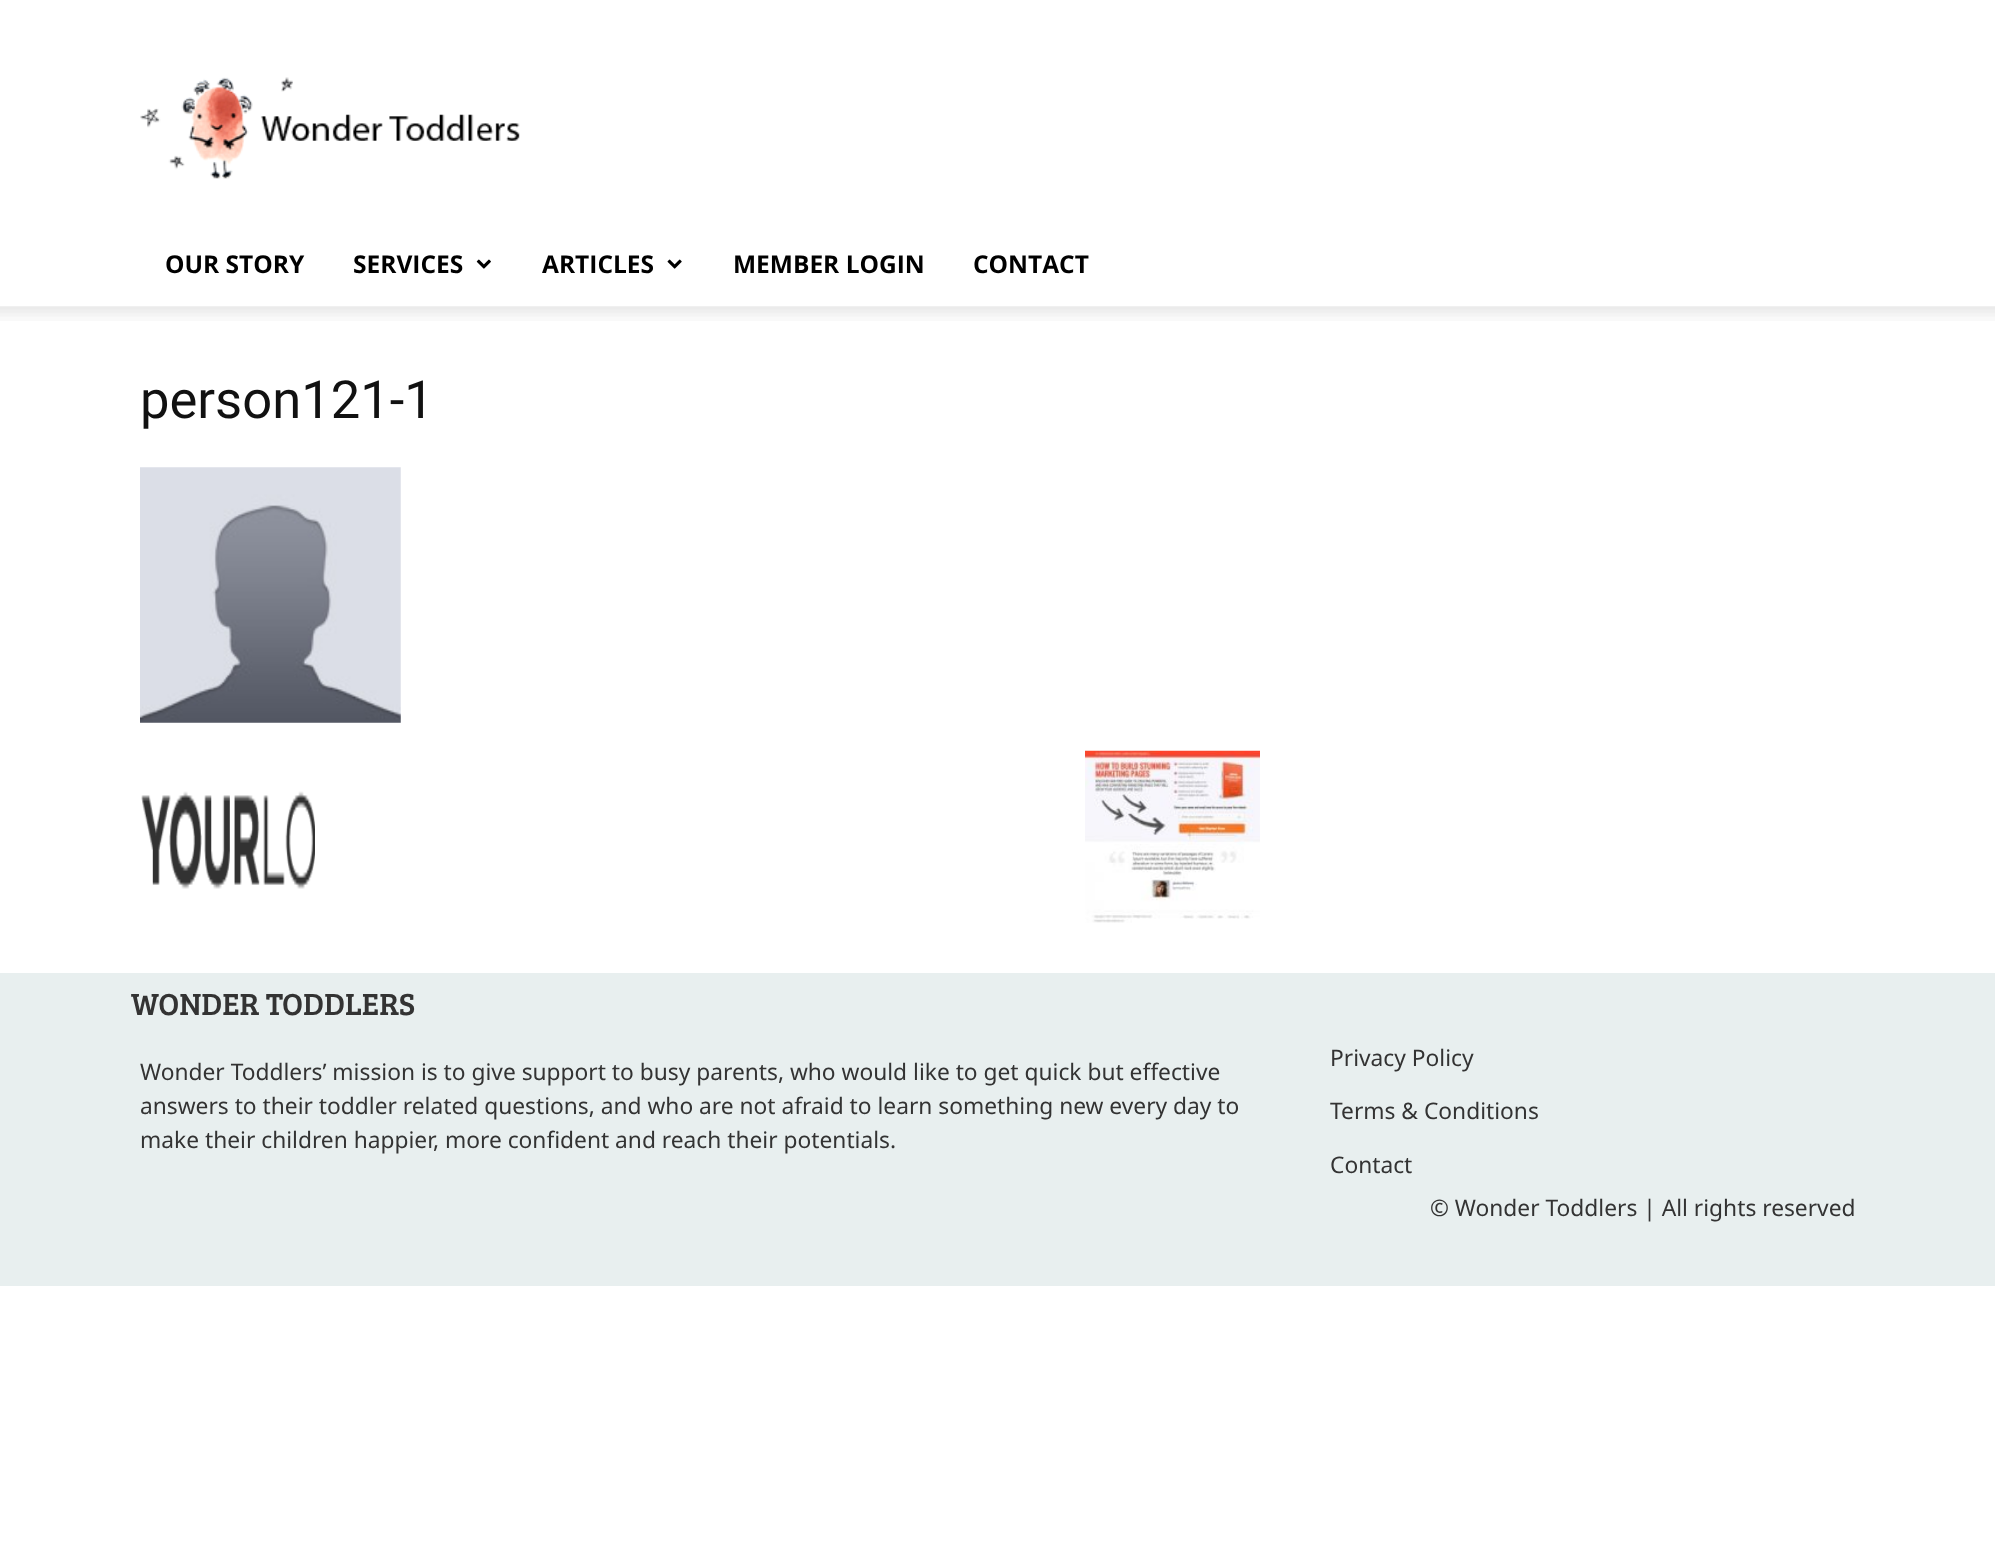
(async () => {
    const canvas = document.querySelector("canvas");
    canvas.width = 1995;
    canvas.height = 1562;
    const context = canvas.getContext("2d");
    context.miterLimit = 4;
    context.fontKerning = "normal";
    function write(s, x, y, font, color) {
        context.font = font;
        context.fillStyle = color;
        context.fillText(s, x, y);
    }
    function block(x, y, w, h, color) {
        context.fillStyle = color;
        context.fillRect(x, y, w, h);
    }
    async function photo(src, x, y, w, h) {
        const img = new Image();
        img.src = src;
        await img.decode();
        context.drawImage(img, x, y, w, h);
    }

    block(0, 0, 1995, 1562, "rgb(255, 255, 255)");
    await photo("media/1.png", 140, 77, 380, 102);
    write("OUR STORY", 165, 273, "bold 24.5px Open Sans", "rgb(0, 0, 0)");
    write("SERVICES", 353, 273, "bold 24.5px Open Sans", "rgb(0, 0, 0)");
    await photo("media/2.png", 476, 259, 15, 10);
    write("ARTICLES", 542, 273, "bold 24.5px Open Sans", "rgb(0, 0, 0)");
    await photo("media/3.png", 667, 259, 15, 10);
    write("MEMBER LOGIN", 733, 273, "bold 24.5px Open Sans", "rgb(0, 0, 0)");
    write("CONTACT", 973, 273, "bold 24.5px Open Sans", "rgb(0, 0, 0)");
    await photo("media/4.png", 0, 306, 1995, 15);
    write("person121-1", 140, 418, "52.5px Roboto", "rgb(17, 17, 17)");
    await photo("media/5.png", 140, 467, 261, 256);
    await photo("media/6.png", 141, 791, 174, 98);
    await photo("media/7.png", 1085, 750, 175, 173);
    block(0, 973, 1995, 313, "rgb(232, 239, 239)");
    write("WONDER TODDLERS", 131, 1015, "31.5px Bree Serif", "rgb(51, 51, 51)");
    write("Wonder Toddlers’ mission is to give support to busy parents, who would like to get quick but effective", 140, 1080, "22.75px Noto Sans", "rgb(51, 51, 51)");
    write("answers to their toddler related questions, and who are not afraid to learn something new every day to", 140, 1114, "22.75px Noto Sans", "rgb(51, 51, 51)");
    write("make their children happier, more confident and reach their potentials.", 140, 1148, "22.75px Noto Sans", "rgb(51, 51, 51)");
    write("Privacy Policy", 1330, 1066, "22.75px Noto Sans", "rgb(51, 51, 51)");
    write("Terms & Conditions", 1330, 1119, "22.75px Noto Sans", "rgb(51, 51, 51)");
    write("Contact", 1330, 1173, "22.75px Noto Sans", "rgb(51, 51, 51)");
    write("© Wonder Toddlers | All rights reserved", 1430, 1216, "22.75px Noto Sans", "rgb(51, 51, 51)");
})();
